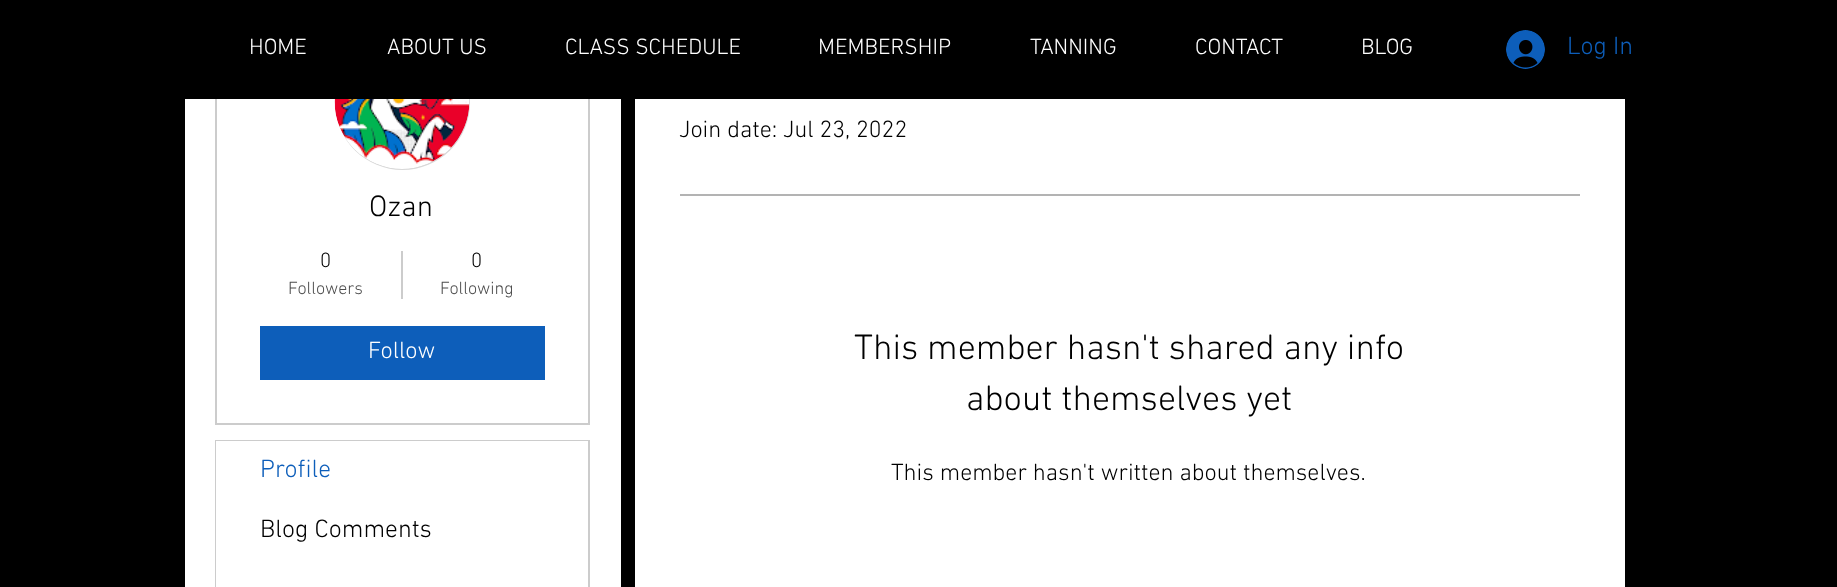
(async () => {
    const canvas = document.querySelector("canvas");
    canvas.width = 1837;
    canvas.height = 587;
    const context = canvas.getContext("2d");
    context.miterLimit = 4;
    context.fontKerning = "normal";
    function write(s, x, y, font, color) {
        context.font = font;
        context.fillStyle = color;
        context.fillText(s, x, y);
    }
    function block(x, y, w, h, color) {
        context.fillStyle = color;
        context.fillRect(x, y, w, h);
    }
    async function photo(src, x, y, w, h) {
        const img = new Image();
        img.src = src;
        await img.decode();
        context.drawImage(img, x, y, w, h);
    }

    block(0, 0, 1837, 587, "rgb(0, 0, 0)");
    block(185, 99, 436, 488, "rgb(255, 255, 255)");
    context.strokeStyle = "rgb(204, 204, 204)";
    context.lineWidth = 2;
    context.strokeRect(216, -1, 373, 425);
    context.fillStyle = "rgb(216, 216, 216)";
    context.beginPath();
    context.arc(402.5, 102.5, 67.5, 0, Math.PI * 2);
    context.fill();
    block(215, 0, 375, 99, "rgb(0, 0, 0)");
    write("HOME", 249, 54, "300 22.5px 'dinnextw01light'", "rgb(255, 255, 255)");
    write("ABOUT US", 387, 54, "300 22.5px 'dinnextw01light'", "rgb(255, 255, 255)");
    write("CLASS SCHEDULE", 565, 54, "300 22.5px 'dinnextw01light'", "rgb(255, 255, 255)");
    write("MEMBERSHIP", 818, 54, "300 22.5px 'dinnextw01light'", "rgb(255, 255, 255)");
    write("TANNING", 1030, 54, "300 22.5px 'dinnextw01light'", "rgb(255, 255, 255)");
    write("CONTACT", 1195, 54, "300 22.5px 'dinnextw01light'", "rgb(255, 255, 255)");
    write("BLOG", 1361, 54, "300 22.5px 'dinnextw01light'", "rgb(255, 255, 255)");
    await photo("media/1.png", 1506, 30, 39, 39);
    write("Log In", 1567, 54, "300 25.5px 'dinnextw01light'", "rgb(13, 94, 186)");
    await photo("media/2.png", 334, 99, 136, 70);
    write("Ozan", 369, 216, "300 30px 'dinnextw01light'", "rgb(0, 0, 0)");
    write("0", 320, 267, "300 21px 'dinnextw01light'", "rgb(0, 0, 0)");
    write("Followers", 288, 294, "300 18px 'dinnextw01light'", "rgb(77, 77, 77)");
    block(401, 251, 2, 48, "rgb(204, 204, 204)");
    write("0", 471, 267, "300 21px 'dinnextw01light'", "rgb(0, 0, 0)");
    write("Following", 440, 294, "300 18px 'dinnextw01light'", "rgb(77, 77, 77)");
    block(260, 326, 285, 54, "rgb(13, 94, 186)");
    write("Follow", 368, 358, "300 24px 'dinnextw01light'", "rgb(255, 255, 255)");
    context.strokeRect(216, 441, 373, 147);
    block(216, 441, 372, 60, "rgb(255, 255, 255)");
    write("Profile", 260, 477, "300 25.5px 'dinnextw01light'", "rgb(13, 94, 186)");
    block(216, 501, 1, 86, "rgb(255, 255, 255)");
    write("Blog Comments", 260, 537, "300 25.5px 'dinnextw01light'", "rgb(0, 0, 0)");
    block(635, 99, 990, 488, "rgb(255, 255, 255)");
    write("Join date: Jul 23, 2022", 679, 137, "300 24px 'dinnextw01light'", "rgb(0, 0, 0)");
    block(680, 194, 900, 2, "rgb(179, 179, 179)");
    write("This member hasn't shared any info", 854, 359, "300 36px 'dinnextw01light'", "rgb(0, 0, 0)");
    write("about themselves yet", 966, 410, "300 36px 'dinnextw01light'", "rgb(0, 0, 0)");
    write("This member hasn't written about themselves.", 891, 480, "300 24px 'dinnextw01light'", "rgb(0, 0, 0)");
})();
